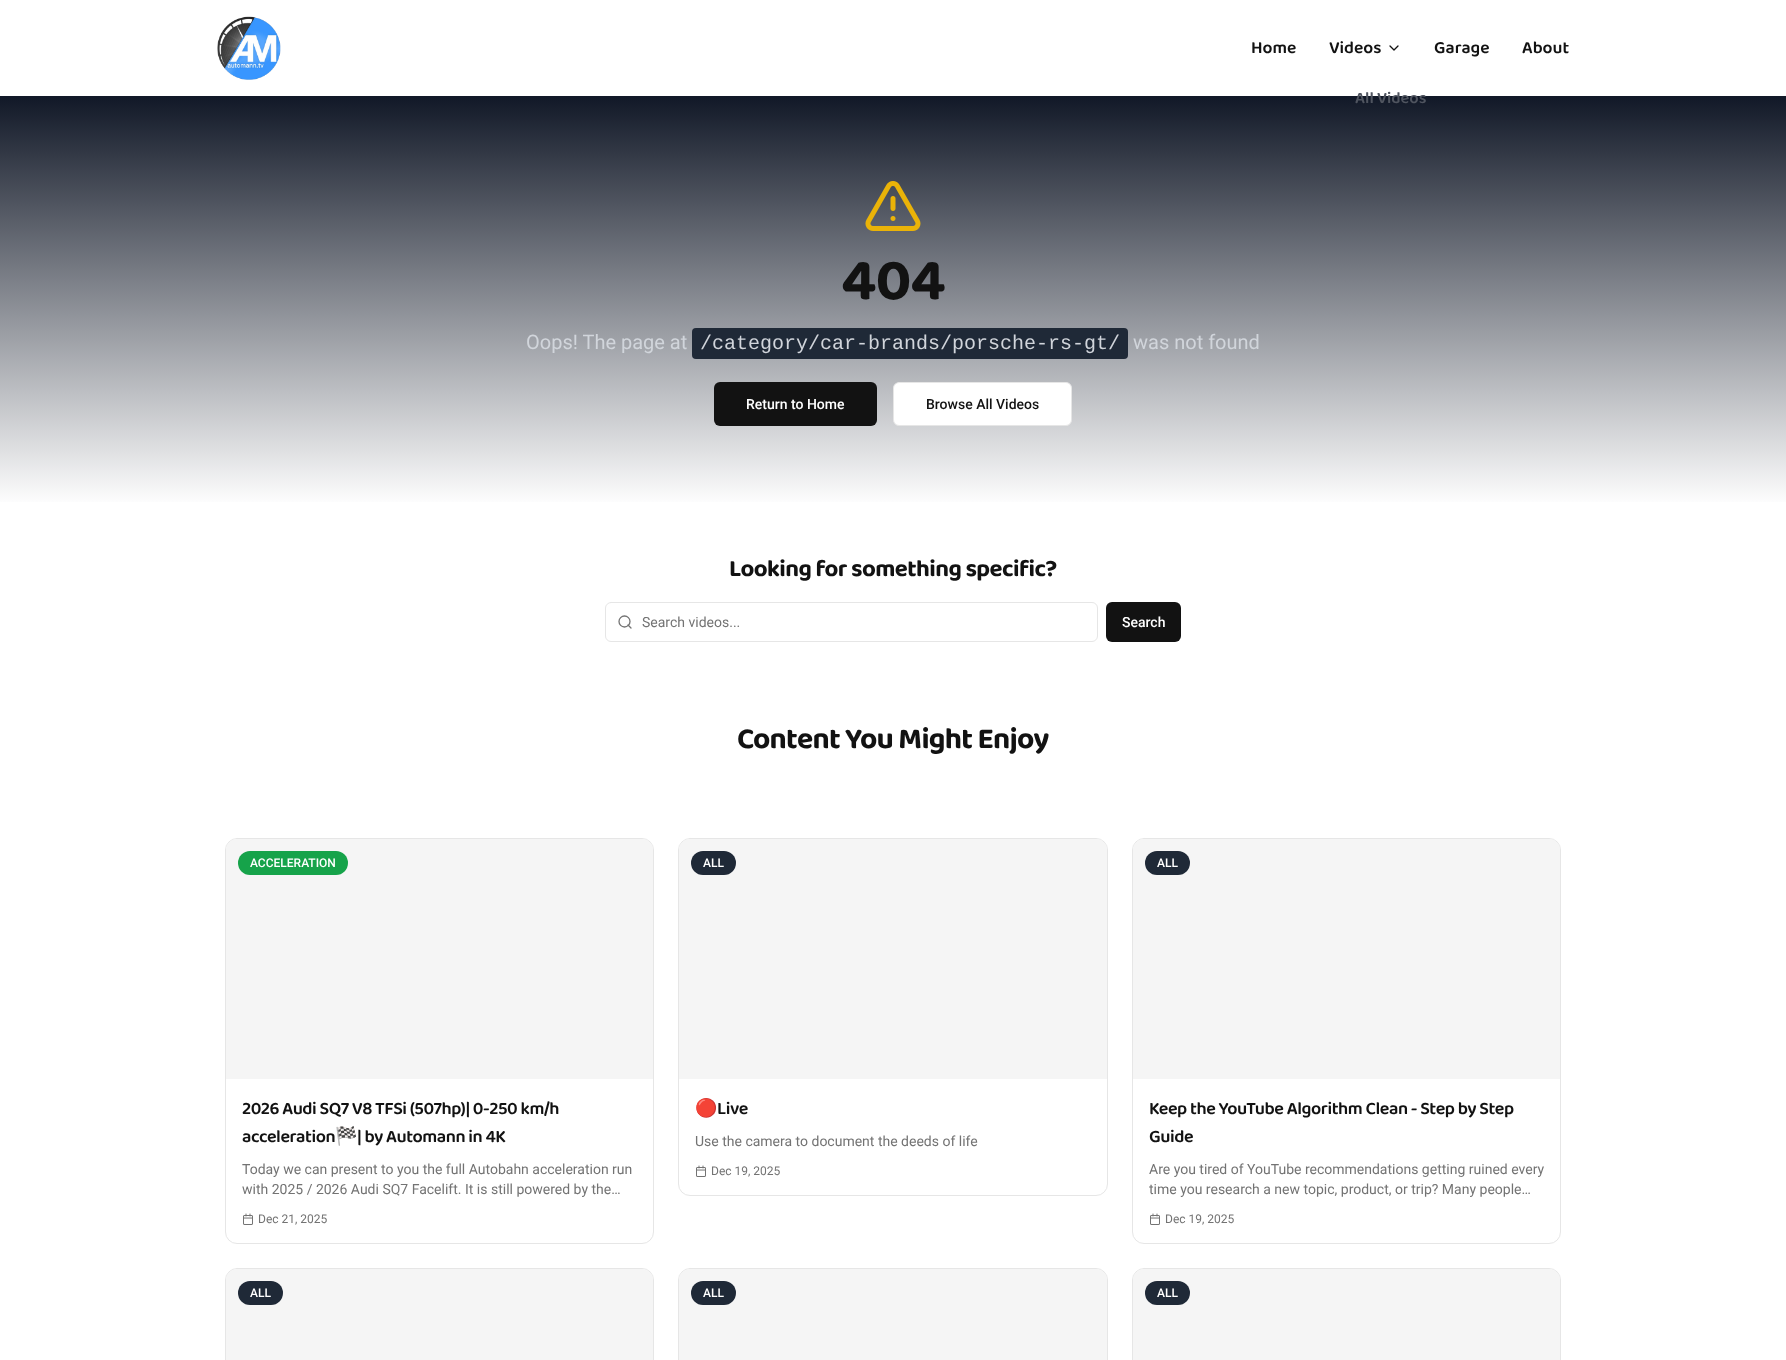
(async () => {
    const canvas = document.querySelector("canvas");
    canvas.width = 1786;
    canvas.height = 1360;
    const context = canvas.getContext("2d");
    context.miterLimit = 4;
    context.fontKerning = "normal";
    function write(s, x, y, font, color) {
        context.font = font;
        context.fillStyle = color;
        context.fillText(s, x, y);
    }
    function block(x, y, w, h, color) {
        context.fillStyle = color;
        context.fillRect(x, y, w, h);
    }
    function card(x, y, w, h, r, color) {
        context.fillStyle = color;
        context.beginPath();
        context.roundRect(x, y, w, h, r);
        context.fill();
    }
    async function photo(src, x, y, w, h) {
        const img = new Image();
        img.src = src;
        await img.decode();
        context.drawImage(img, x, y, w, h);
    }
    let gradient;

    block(0, 0, 1786, 1360, "rgb(255, 255, 255)");
    await photo("media/1.png", 217, 16, 64, 64);
    write("Home", 1251, 53, "600 17.5px 'Baloo 2'", "rgb(18, 18, 18)");
    write("Videos", 1329, 53, "600 17.5px 'Baloo 2'", "rgb(18, 18, 18)");
    context.beginPath();
    context.moveTo(1390, 46);
    context.lineTo(1394, 50);
    context.lineTo(1398, 46);
    context.strokeStyle = "rgb(18, 18, 18)";
    context.lineWidth = 1.3;
    context.lineCap = "round";
    context.lineJoin = "round";
    context.stroke();
    gradient = context.createLinearGradient(893, 96, 893, 506);
    gradient.addColorStop(0, "rgb(17, 24, 39)");
    gradient.addColorStop(1, "rgb(255, 255, 255)");
    context.fillStyle = gradient;
    context.fillRect(0, 96, 1786, 406);
    write("All Videos", 1355, 103, "600 16.5px 'Baloo 2'", "rgb(79, 84, 95)");
    write("Garage", 1434, 53, "600 17.5px 'Baloo 2'", "rgb(18, 18, 18)");
    write("About", 1522, 53, "600 17.5px 'Baloo 2'", "rgb(18, 18, 18)");
    await photo("media/2.png", 865, 181, 56, 50);
    context.letterSpacing = "-1.5px";
    write("404", 841, 299, "bold 60px 'Baloo 2'", "rgb(18, 18, 18)");
    context.letterSpacing = "0px";
    write("Oops! The page at", 526, 349, "20px Roboto", "rgb(209, 213, 219)");
    card(692, 328, 436, 31, 4, "rgb(31, 41, 55)");
    write("/category/car-brands/porsche-rs-gt/", 700, 349, "20px Liberation Mono", "rgb(209, 213, 219)");
    write("was not found", 1133, 349, "20px Roboto", "rgb(209, 213, 219)");
    card(714, 382, 163, 44, 6, "rgb(18, 18, 18)");
    write("Return to Home", 746, 409, "500 14px Roboto", "rgb(255, 255, 255)");
    context.beginPath();
    context.roundRect(893.5, 382.5, 178, 43, 5.5);
    context.fill();
    context.strokeStyle = "rgb(230, 230, 230)";
    context.lineWidth = 1;
    context.lineJoin = "miter";
    context.stroke();
    write("Browse All Videos", 926, 409, "500 14px Roboto", "rgb(18, 18, 18)");
    context.letterSpacing = "-0.6px";
    write("Looking for something specific?", 729, 576, "bold 24px 'Baloo 2'", "rgb(18, 18, 18)");
    context.beginPath();
    context.roundRect(605.5, 602.5, 492, 39, 5.5);
    context.stroke();
    context.beginPath();
    context.arc(624.5, 621.5, 5.5, 0, Math.PI * 2);
    context.strokeStyle = "rgb(115, 115, 115)";
    context.lineWidth = 1.3;
    context.stroke();
    context.beginPath();
    context.moveTo(631, 628);
    context.lineTo(628, 625);
    context.lineJoin = "round";
    context.stroke();
    context.letterSpacing = "0px";
    write("Search videos...", 642, 627, "14px Roboto", "rgb(115, 115, 115)");
    card(1106, 602, 75, 40, 6, "rgb(18, 18, 18)");
    write("Search", 1122, 627, "500 14px Roboto", "rgb(255, 255, 255)");
    context.letterSpacing = "-0.75px";
    write("Content You Might Enjoy", 737, 748, "bold 30px 'Baloo 2'", "rgb(18, 18, 18)");
    context.beginPath();
    context.roundRect(225.5, 838.5, 428, 405, 11.5);
    context.strokeStyle = "rgb(230, 230, 230)";
    context.lineWidth = 1;
    context.lineJoin = "miter";
    context.stroke();
    context.fillStyle = "rgb(245, 245, 245)";
    context.beginPath();
    context.roundRect(226, 839, 427, 240, [11, 11, 0, 0]);
    context.fill();
    card(238, 851, 110, 24, 12, "rgb(22, 163, 74)");
    context.letterSpacing = "0px";
    write("ACCELERATION", 250, 867, "500 12px Roboto", "rgb(255, 255, 255)");
    context.letterSpacing = "-0.45px";
    write("2026 Audi SQ7 V8 TFSi (507hp)| 0-250 km/h", 242, 1114, "600 18px 'Baloo 2'", "rgb(18, 18, 18)");
    write("acceleration", 242, 1142, "600 18px 'Baloo 2'", "rgb(18, 18, 18)");
    write("🏁", 335, 1142, "bold 18px Noto Color Emoji", "rgb(18, 18, 18)");
    write("| by Automann in 4K", 357, 1142, "600 18px 'Baloo 2'", "rgb(18, 18, 18)");
    context.letterSpacing = "0px";
    write("Today we can present to you the full Autobahn acceleration run", 242, 1174, "14px Roboto", "rgb(115, 115, 115)");
    write("with 2025 / 2026 Audi SQ7 Facelift. It is still powered by the…", 242, 1194, "14px Roboto", "rgb(115, 115, 115)");
    await photo("media/3.png", 243, 1213, 10, 12);
    write("Dec 21, 2025", 258, 1223, "12px Roboto", "rgb(115, 115, 115)");
    context.beginPath();
    context.roundRect(678.5, 838.5, 429, 357, 11.5);
    context.stroke();
    context.fillStyle = "rgb(245, 245, 245)";
    context.beginPath();
    context.roundRect(679, 839, 428, 240, [11, 11, 0, 0]);
    context.fill();
    card(691, 851, 45, 24, 12, "rgb(31, 41, 55)");
    write("ALL", 703, 867, "500 12px Roboto", "rgb(255, 255, 255)");
    context.letterSpacing = "-0.45px";
    write("🔴", 695, 1114, "bold 18px Noto Color Emoji", "rgb(18, 18, 18)");
    write("Live", 717, 1114, "600 18px 'Baloo 2'", "rgb(18, 18, 18)");
    context.letterSpacing = "0px";
    write("Use the camera to document the deeds of life", 695, 1146, "14px Roboto", "rgb(115, 115, 115)");
    await photo("media/3.png", 696, 1165, 10, 12);
    write("Dec 19, 2025", 711, 1175, "12px Roboto", "rgb(115, 115, 115)");
    context.beginPath();
    context.roundRect(1132.5, 838.5, 428, 405, 11.5);
    context.stroke();
    context.fillStyle = "rgb(245, 245, 245)";
    context.beginPath();
    context.roundRect(1133, 839, 427, 240, [11, 11, 0, 0]);
    context.fill();
    card(1145, 851, 45, 24, 12, "rgb(31, 41, 55)");
    write("ALL", 1157, 867, "500 12px Roboto", "rgb(255, 255, 255)");
    context.letterSpacing = "-0.45px";
    write("Keep the YouTube Algorithm Clean - Step by Step", 1149, 1114, "600 18px 'Baloo 2'", "rgb(18, 18, 18)");
    write("Guide", 1149, 1142, "600 18px 'Baloo 2'", "rgb(18, 18, 18)");
    context.letterSpacing = "0px";
    write("Are you tired of YouTube recommendations getting ruined every", 1149, 1174, "14px Roboto", "rgb(115, 115, 115)");
    write("time you research a new topic, product, or trip? Many people…", 1149, 1194, "14px Roboto", "rgb(115, 115, 115)");
    await photo("media/3.png", 1150, 1213, 10, 12);
    write("Dec 19, 2025", 1165, 1223, "12px Roboto", "rgb(115, 115, 115)");
    context.beginPath();
    context.roundRect(225.5, 1268.5, 428, 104, 11.5);
    context.stroke();
    context.fillStyle = "rgb(245, 245, 245)";
    context.beginPath();
    context.moveTo(237, 1269);
    context.lineTo(642, 1269);
    context.bezierCurveTo(648, 1269, 653, 1274, 653, 1280);
    context.lineTo(653, 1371);
    context.lineTo(226, 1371);
    context.lineTo(226, 1280);
    context.bezierCurveTo(226, 1274, 231, 1269, 237, 1269);
    context.closePath();
    context.fill();
    card(238, 1281, 45, 24, 12, "rgb(31, 41, 55)");
    write("ALL", 250, 1297, "500 12px Roboto", "rgb(255, 255, 255)");
    context.beginPath();
    context.roundRect(678.5, 1268.5, 429, 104, 11.5);
    context.stroke();
    context.fillStyle = "rgb(245, 245, 245)";
    context.beginPath();
    context.moveTo(690, 1269);
    context.lineTo(1096, 1269);
    context.bezierCurveTo(1102, 1269, 1107, 1274, 1107, 1280);
    context.lineTo(1107, 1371);
    context.lineTo(679, 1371);
    context.lineTo(679, 1280);
    context.bezierCurveTo(679, 1274, 684, 1269, 690, 1269);
    context.closePath();
    context.fill();
    card(691, 1281, 45, 24, 12, "rgb(31, 41, 55)");
    write("ALL", 703, 1297, "500 12px Roboto", "rgb(255, 255, 255)");
    context.beginPath();
    context.roundRect(1132.5, 1268.5, 428, 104, 11.5);
    context.stroke();
    context.fillStyle = "rgb(245, 245, 245)";
    context.beginPath();
    context.moveTo(1144, 1269);
    context.lineTo(1549, 1269);
    context.bezierCurveTo(1555, 1269, 1560, 1274, 1560, 1280);
    context.lineTo(1560, 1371);
    context.lineTo(1133, 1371);
    context.lineTo(1133, 1280);
    context.bezierCurveTo(1133, 1274, 1138, 1269, 1144, 1269);
    context.closePath();
    context.fill();
    card(1145, 1281, 45, 24, 12, "rgb(31, 41, 55)");
    write("ALL", 1157, 1297, "500 12px Roboto", "rgb(255, 255, 255)");
})();
